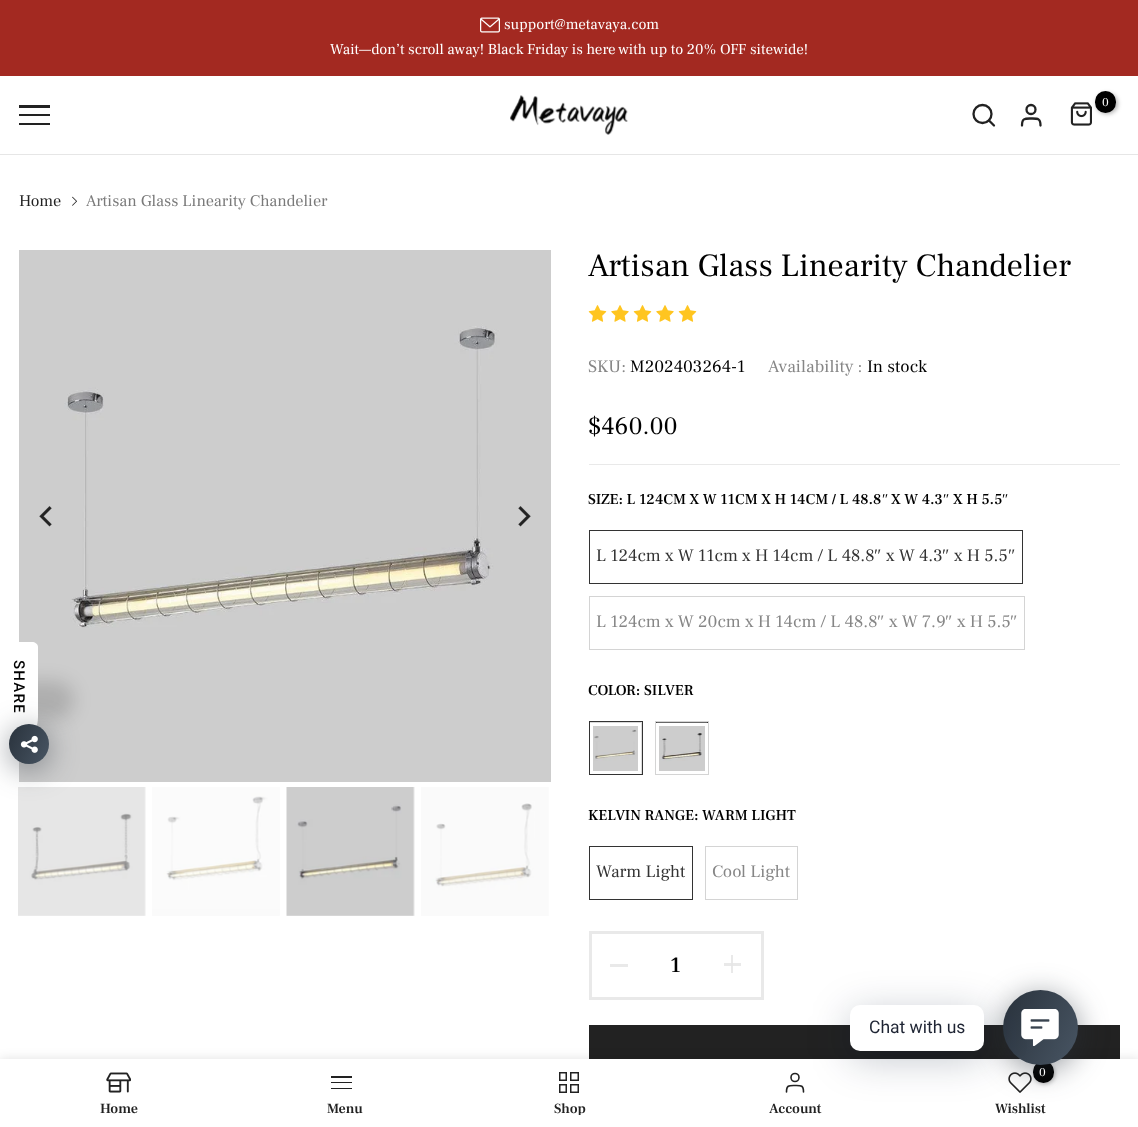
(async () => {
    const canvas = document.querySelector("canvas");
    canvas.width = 1138;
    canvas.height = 1127;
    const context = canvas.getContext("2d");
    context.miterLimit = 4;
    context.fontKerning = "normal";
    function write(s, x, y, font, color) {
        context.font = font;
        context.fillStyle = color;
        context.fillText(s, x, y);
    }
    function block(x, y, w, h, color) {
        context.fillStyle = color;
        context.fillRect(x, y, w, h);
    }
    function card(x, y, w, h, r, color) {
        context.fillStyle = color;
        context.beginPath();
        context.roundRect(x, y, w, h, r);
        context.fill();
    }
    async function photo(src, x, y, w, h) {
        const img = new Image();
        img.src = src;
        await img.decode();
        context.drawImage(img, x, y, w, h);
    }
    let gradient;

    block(0, 0, 1138, 1127, "rgb(255, 255, 255)");
    block(731, 955, 2, 18, "rgb(233, 233, 233)");
    block(0, 0, 1138, 76, "rgb(163, 41, 33)");
    await photo("media/1.png", 480, 17, 20, 16);
    write("support@metavaya.com", 504, 29, "15px Frank Ruhl Libre", "rgb(255, 255, 255)");
    write("Wait—don’t scroll away! Black Friday is here with up to 20% OFF sitewide!", 330, 54, "15px Frank Ruhl Libre", "rgb(255, 255, 255)");
    await photo("media/2.png", 510, 95, 118, 40);
    await photo("media/3.png", 1070, 102, 22, 24);
    context.fillStyle = "rgba(0, 0, 0, 0.3)";
    context.filter = "blur(2px)";
    context.beginPath();
    context.roundRect(1096, 93, 22, 21, 10.5);
    context.fill();
    context.filter = "none";
    card(1095, 91, 21, 22, 10.5, "rgb(0, 0, 0)");
    write("0", 1102, 106, "12px Frank Ruhl Libre", "rgb(255, 255, 255)");
    context.beginPath();
    context.arc(982.5, 114, 9, 0, Math.PI * 2);
    context.strokeStyle = "rgb(34, 34, 34)";
    context.lineWidth = 2.3;
    context.stroke();
    context.beginPath();
    context.moveTo(994, 125.5);
    context.lineTo(989, 120.5);
    context.moveTo(1040.5, 125.5);
    context.bezierCurveTo(1040.5, 118, 1037.5, 118.5, 1031, 118.5);
    context.bezierCurveTo(1025, 118.5, 1022, 118, 1022, 125.5);
    context.lineCap = "round";
    context.lineJoin = "round";
    context.stroke();
    context.beginPath();
    context.arc(1031, 109.5, 4.5, 0, Math.PI * 2);
    context.stroke();
    block(19, 105, 31, 3, "rgb(34, 34, 34)");
    block(19, 114, 31, 2, "rgb(34, 34, 34)");
    block(19, 123, 31, 2, "rgb(34, 34, 34)");
    block(0, 154, 1138, 1, "rgb(230, 230, 230)");
    write("Home", 19, 206, "16.25px Frank Ruhl Libre", "rgb(34, 34, 34)");
    await photo("media/4.png", 72, 196, 5, 10);
    write("Artisan Glass Linearity Chandelier", 86, 206, "16.25px Frank Ruhl Libre", "rgb(122, 122, 122)");
    await photo("media/5.png", 19, 250, 532, 532);
    await photo("media/6.png", 39, 506, 13, 21);
    await photo("media/7.png", 518, 506, 13, 21);
    await photo("media/8.png", 18, 787, 128, 129);
    await photo("media/9.png", 152, 787, 128, 129);
    await photo("media/10.png", 286, 787, 129, 129);
    await photo("media/11.png", 421, 787, 128, 129);
    write("Artisan Glass Linearity Chandelier", 588, 276, "32.5px Frank Ruhl Libre", "rgb(0, 0, 0)");
    await photo("media/12.png", 588, 305, 19, 17);
    await photo("media/13.png", 611, 305, 18, 17);
    await photo("media/12.png", 633, 305, 19, 17);
    await photo("media/13.png", 656, 305, 18, 17);
    await photo("media/12.png", 678, 305, 19, 17);
    write("SKU:", 588, 372, "17.5px Frank Ruhl Libre", "rgb(134, 134, 134)");
    write("M202403264-1", 630, 372, "17.5px Frank Ruhl Libre", "rgb(0, 0, 0)");
    write("Availability :", 768, 372, "17.5px Frank Ruhl Libre", "rgb(134, 134, 134)");
    write("In stock", 867, 372, "17.5px Frank Ruhl Libre", "rgb(0, 0, 0)");
    write("$460.00", 588, 434, "25px Frank Ruhl Libre", "rgb(0, 0, 0)");
    block(589, 464, 531, 1, "rgb(233, 233, 233)");
    write("SIZE: L 124CM X W 11CM X H 14CM / L 48.8", 588, 504, "500 15px Frank Ruhl Libre", "rgb(0, 0, 0)");
    write("″", 882, 504, "15px Liberation Serif", "rgb(0, 0, 0)");
    write("X W 4.3", 891, 504, "500 15px Frank Ruhl Libre", "rgb(0, 0, 0)");
    write("″", 943, 504, "15px Liberation Serif", "rgb(0, 0, 0)");
    write("X H 5.5", 953, 504, "500 15px Frank Ruhl Libre", "rgb(0, 0, 0)");
    write("″", 1002, 504, "15px Liberation Serif", "rgb(0, 0, 0)");
    context.strokeStyle = "rgb(51, 51, 51)";
    context.lineWidth = 1;
    context.lineJoin = "miter";
    context.strokeRect(589.5, 530.5, 433, 53);
    write("L 124cm x W 11cm x H 14cm / L 48.8", 596, 561, "17.5px Frank Ruhl Libre", "rgb(51, 51, 51)");
    write("″", 874, 561, "17.5px Liberation Serif", "rgb(51, 51, 51)");
    write("x W 4.3", 886, 561, "17.5px Frank Ruhl Libre", "rgb(51, 51, 51)");
    write("″", 942, 561, "17.5px Liberation Serif", "rgb(51, 51, 51)");
    write("x H 5.5", 954, 561, "17.5px Frank Ruhl Libre", "rgb(51, 51, 51)");
    write("″", 1008, 561, "17.5px Liberation Serif", "rgb(51, 51, 51)");
    context.strokeStyle = "rgb(212, 212, 212)";
    context.strokeRect(589.5, 596.5, 435, 53);
    write("L 124cm x W 20cm x H 14cm / L 48.8", 596, 627, "17.5px Frank Ruhl Libre", "rgb(134, 134, 134)");
    write("″", 877, 627, "17.5px Liberation Serif", "rgb(134, 134, 134)");
    write("x W 7.9", 889, 627, "17.5px Frank Ruhl Libre", "rgb(134, 134, 134)");
    write("″", 945, 627, "17.5px Liberation Serif", "rgb(134, 134, 134)");
    write("x H 5.5", 957, 627, "17.5px Frank Ruhl Libre", "rgb(134, 134, 134)");
    write("″", 1010, 627, "17.5px Liberation Serif", "rgb(134, 134, 134)");
    write("COLOR: SILVER", 588, 695, "500 15px Frank Ruhl Libre", "rgb(0, 0, 0)");
    block(590, 722, 52, 52, "rgb(229, 229, 229)");
    await photo("media/14.png", 590, 722, 52, 52);
    context.strokeStyle = "rgb(255, 255, 255)";
    context.lineWidth = 3;
    context.strokeRect(591.5, 724.5, 48, 48);
    context.strokeStyle = "rgb(51, 51, 51)";
    context.lineWidth = 1;
    context.strokeRect(589.5, 721.5, 53, 53);
    block(656, 722, 52, 1, "rgb(0, 0, 0)");
    await photo("media/15.png", 656, 722, 52, 49);
    context.strokeStyle = "rgb(255, 255, 255)";
    context.lineWidth = 3;
    context.strokeRect(657.5, 724.5, 49, 48);
    context.strokeStyle = "rgb(212, 212, 212)";
    context.lineWidth = 1;
    context.strokeRect(655.5, 721.5, 53, 53);
    write("KELVIN RANGE: WARM LIGHT", 588, 820, "500 15px Frank Ruhl Libre", "rgb(0, 0, 0)");
    context.strokeStyle = "rgb(51, 51, 51)";
    context.strokeRect(589.5, 846.5, 103, 53);
    write("Warm Light", 596, 877, "17.5px Frank Ruhl Libre", "rgb(51, 51, 51)");
    context.strokeStyle = "rgb(212, 212, 212)";
    context.strokeRect(705.5, 846.5, 92, 53);
    write("Cool Light", 712, 877, "17.5px Frank Ruhl Libre", "rgb(134, 134, 134)");
    context.strokeStyle = "rgb(233, 233, 233)";
    context.lineWidth = 3;
    context.strokeRect(590.5, 932.5, 172, 66);
    block(610, 964, 18, 3, "rgb(233, 233, 233)");
    write("1", 670, 972, "500 22px Frank Ruhl Libre", "rgb(0, 0, 0)");
    block(724, 963, 17, 3, "rgb(233, 233, 233)");
    block(731, 963, 2, 3, "rgb(230, 230, 230)");
    block(589, 1025, 531, 34, "rgb(34, 34, 34)");
    context.fillStyle = "rgba(0, 0, 0, 0.15)";
    context.filter = "blur(9px)";
    context.beginPath();
    context.roundRect(-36, 681, 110, 38, 35);
    context.fill();
    context.filter = "none";
    context.fillStyle = "rgb(255, 255, 255)";
    context.beginPath();
    context.moveTo(0, 752);
    context.lineTo(0, 642);
    context.lineTo(32, 642);
    context.bezierCurveTo(35, 642, 38, 644, 38, 647);
    context.lineTo(38, 717);
    context.bezierCurveTo(38, 736, 22, 752, 2, 752);
    context.closePath();
    context.fill();
    context.letterSpacing = "1.25px";
    context.font = "500 15px Roboto";
    context.fillStyle = "rgb(0, 0, 0)";
    context.save();
    context.translate(14, 660);
    context.rotate(90 * Math.PI / 180);
    context.fillText("SHARE", 0, 0);
    context.restore();
    context.fillStyle = "rgba(41, 50, 60, 0.5)";
    context.filter = "blur(15px)";
    context.beginPath();
    context.roundRect(9, 729, 40, 40, 20);
    context.fill();
    context.filter = "none";
    gradient = context.createLinearGradient(4.7, 733, 53, 755);
    gradient.addColorStop(0, "rgb(41, 50, 60)");
    gradient.addColorStop(1, "rgb(72, 85, 99)");
    context.fillStyle = gradient;
    context.beginPath();
    context.arc(29, 744, 20, 0, Math.PI * 2);
    context.fill();
    await photo("media/16.png", 20, 735, 18, 18);
    context.fillStyle = "rgba(0, 0, 0, 0.12)";
    context.filter = "blur(5.5px)";
    context.beginPath();
    context.rect(0, 1059, 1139, 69);
    context.fill();
    context.filter = "none";
    block(0, 1059, 1138, 68, "rgb(255, 255, 255)");
    await photo("media/19.png", 1008, 1072, 24, 21);
    context.fillStyle = "rgba(0, 0, 0, 0.3)";
    context.filter = "blur(2px)";
    context.beginPath();
    context.roundRect(1034, 1063, 21, 21, 10.5);
    context.fill();
    context.filter = "none";
    card(1033, 1061, 21, 22, 10.5, "rgb(0, 0, 0)");
    context.fillStyle = "rgba(41, 50, 60, 0.5)";
    context.filter = "blur(15px)";
    context.beginPath();
    context.roundRect(1003, 995, 75, 75, 37.5);
    context.fill();
    context.filter = "none";
    gradient = context.createLinearGradient(995, 1006, 1085, 1049);
    gradient.addColorStop(0, "rgb(41, 50, 60)");
    gradient.addColorStop(1, "rgb(72, 85, 99)");
    context.fillStyle = gradient;
    context.beginPath();
    context.arc(1040.5, 1027.5, 37.5, 0, Math.PI * 2);
    context.fill();
    context.beginPath();
    context.arc(795, 1077.5, 4, 0, Math.PI * 2);
    context.strokeStyle = "rgb(34, 34, 34)";
    context.lineWidth = 1.6;
    context.stroke();
    context.beginPath();
    context.moveTo(803.5, 1092);
    context.bezierCurveTo(803.5, 1085, 801, 1085.5, 795, 1085.5);
    context.bezierCurveTo(789, 1085.5, 786.5, 1085, 786.5, 1092);
    context.lineJoin = "round";
    context.stroke();
    context.fillStyle = "rgba(0, 18, 46, 0.24)";
    context.filter = "blur(20px)";
    context.beginPath();
    context.roundRect(850, 1013, 134, 46, 10);
    context.fill();
    context.filter = "none";
    card(850, 1005, 134, 46, 10, "rgb(255, 255, 255)");
    context.letterSpacing = "0px";
    write("Chat with us", 869, 1033, "17.5px Roboto", "rgb(30, 36, 51)");
    await photo("media/17.png", 1021, 1009, 38, 37);
    await photo("media/18.png", 106, 1072, 25, 21);
    write("Home", 100, 1113, "600 14px Frank Ruhl Libre", "rgb(34, 34, 34)");
    block(331, 1076, 21, 2, "rgb(34, 34, 34)");
    block(331, 1082, 21, 1, "rgb(34, 34, 34)");
    block(331, 1088, 21, 1, "rgb(34, 34, 34)");
    write("Menu", 327, 1113, "600 14px Frank Ruhl Libre", "rgb(34, 34, 34)");
    context.lineWidth = 1.5;
    context.lineJoin = "miter";
    context.strokeRect(559.75, 1072.75, 6.5, 7.5);
    context.strokeRect(570.75, 1072.75, 7.5, 7.5);
    context.strokeRect(559.75, 1084.75, 6.5, 7.5);
    context.strokeRect(570.75, 1084.75, 7.5, 7.5);
    context.save();
    context.beginPath();
    context.rect(469, 1101, 201, 14);
    context.clip();
    write("Shop", 554, 1113, "600 14px Frank Ruhl Libre", "rgb(34, 34, 34)");
    context.restore();
    write("Account", 769, 1113, "600 14px Frank Ruhl Libre", "rgb(34, 34, 34)");
    write("0", 1039, 1076, "12px Frank Ruhl Libre", "rgb(255, 255, 255)");
    write("Wishlist", 995, 1113, "600 14px Frank Ruhl Libre", "rgb(34, 34, 34)");
})();
